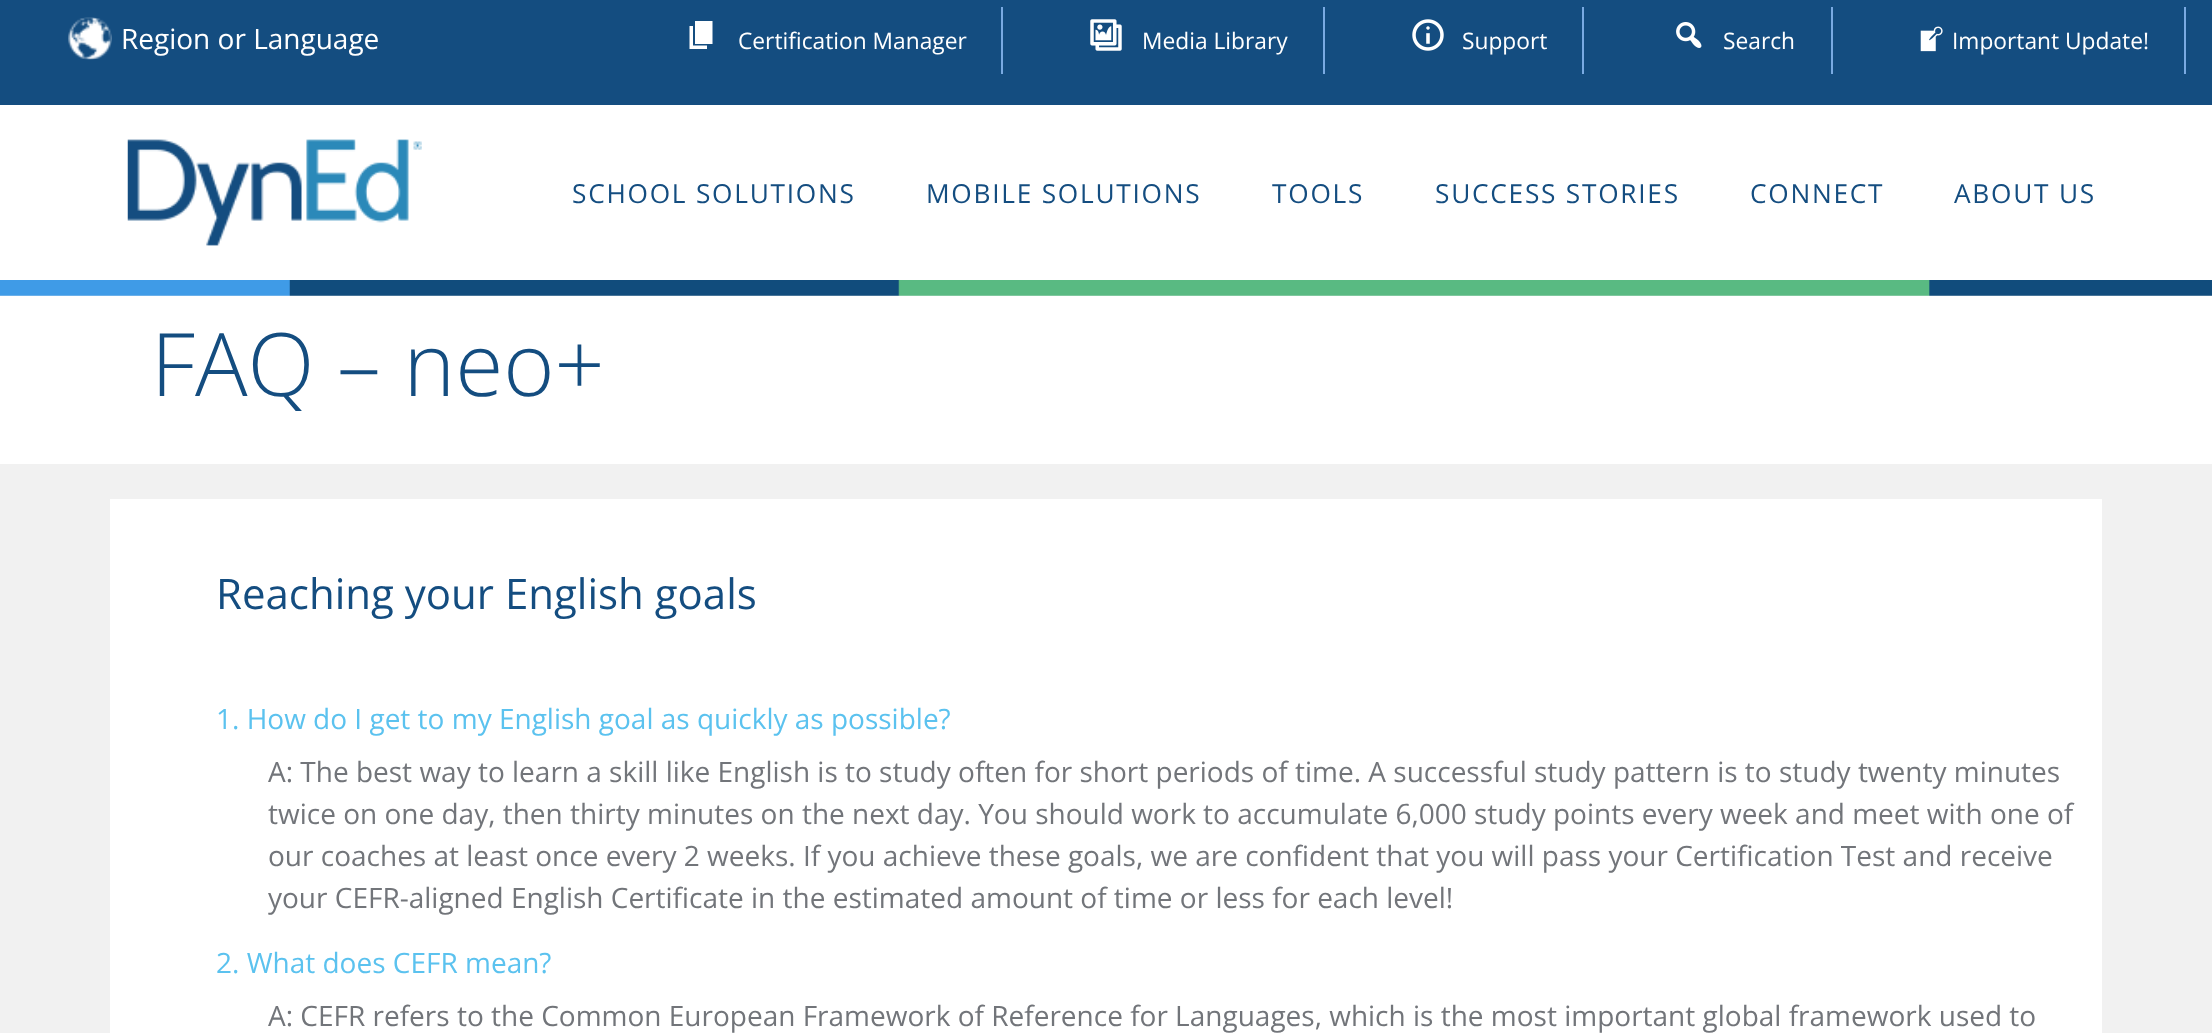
(async () => {
    const canvas = document.querySelector("canvas");
    canvas.width = 2212;
    canvas.height = 1033;
    const context = canvas.getContext("2d");
    context.miterLimit = 4;
    context.fontKerning = "normal";
    function write(s, x, y, font, color) {
        context.font = font;
        context.fillStyle = color;
        context.fillText(s, x, y);
    }
    function block(x, y, w, h, color) {
        context.fillStyle = color;
        context.fillRect(x, y, w, h);
    }
    async function photo(src, x, y, w, h) {
        const img = new Image();
        img.src = src;
        await img.decode();
        context.drawImage(img, x, y, w, h);
    }

    block(0, 0, 2212, 1033, "rgb(241, 241, 241)");
    block(0, 0, 2212, 105, "rgb(20, 77, 128)");
    await photo("media/1.png", 68, 17, 44, 43);
    write("Region or Language", 121, 49, "28px Open Sans", "rgb(255, 255, 255)");
    block(1001, 7, 2, 67, "rgb(122, 170, 226)");
    context.fillStyle = "rgb(255, 255, 255)";
    context.beginPath();
    context.moveTo(695, 44);
    context.lineTo(695, 21);
    context.lineTo(712.5, 21);
    context.lineTo(712.5, 44);
    context.closePath();
    context.moveTo(693, 45.5);
    context.lineTo(707, 45.5);
    context.lineTo(707, 49);
    context.lineTo(689.5, 49);
    context.lineTo(689.5, 26);
    context.lineTo(693, 26);
    context.closePath();
    context.fill();
    write("Certification Manager", 738, 49, "22.75px Open Sans", "rgb(255, 255, 255)");
    block(1323, 7, 2, 67, "rgb(122, 170, 226)");
    await photo("media/2.png", 1090, 19, 32, 32);
    write("Media Library", 1142, 49, "22.75px Open Sans", "rgb(255, 255, 255)");
    block(1582, 7, 2, 67, "rgb(122, 170, 226)");
    await photo("media/3.png", 1412, 19, 32, 32);
    write("Support", 1462, 49, "22.75px Open Sans", "rgb(255, 255, 255)");
    block(1831, 7, 2, 67, "rgb(122, 170, 226)");
    await photo("media/4.png", 1676, 22, 26, 26);
    write("Search", 1723, 49, "22.75px Open Sans", "rgb(255, 255, 255)");
    block(2184, 7, 2, 67, "rgb(122, 170, 226)");
    await photo("media/5.png", 1920, 26, 23, 26);
    write("Important Update!", 1952, 49, "22.75px Open Sans", "rgb(255, 255, 255)");
    block(0, 105, 2212, 175, "rgb(255, 255, 255)");
    await photo("media/6.png", 127, 139, 295, 107);
    context.letterSpacing = "1.75px";
    write("SCHOOL SOLUTIONS", 572, 203, "26.25px Open Sans", "rgb(20, 77, 128)");
    write("MOBILE SOLUTIONS", 926, 203, "26.25px Open Sans", "rgb(20, 77, 128)");
    write("TOOLS", 1272, 203, "26.25px Open Sans", "rgb(20, 77, 128)");
    write("SUCCESS STORIES", 1435, 203, "26.25px Open Sans", "rgb(20, 77, 128)");
    write("CONNECT", 1750, 203, "26.25px Open Sans", "rgb(20, 77, 128)");
    write("ABOUT US", 1954, 203, "26.25px Open Sans", "rgb(20, 77, 128)");
    await photo("media/7.png", 0, 280, 2212, 16);
    block(0, 296, 2212, 168, "rgb(255, 255, 255)");
    context.letterSpacing = "0px";
    write("FAQ – neo+", 151, 396, "300 87.5px Open Sans", "rgb(20, 77, 128)");
    block(110, 499, 1992, 534, "rgb(255, 255, 255)");
    write("Reaching your English goals", 216, 609, "42px Open Sans", "rgb(20, 77, 128)");
    write("1. How do I get to my English goal as quickly as possible?", 216, 729, "28px Open Sans", "rgb(91, 194, 239)");
    write("A: The best way to learn a skill like English is to study often for short periods of time. A successful study pattern is to study twenty minutes", 268, 782, "28px Open Sans", "rgb(114, 117, 122)");
    write("twice on one day, then thirty minutes on the next day. You should work to accumulate 6,000 study points every week and meet with one of", 268, 824, "28px Open Sans", "rgb(114, 117, 122)");
    write("our coaches at least once every 2 weeks. If you achieve these goals, we are confident that you will pass your Certification Test and receive", 268, 866, "28px Open Sans", "rgb(114, 117, 122)");
    write("your CEFR-aligned English Certificate in the estimated amount of time or less for each level!", 268, 908, "28px Open Sans", "rgb(114, 117, 122)");
    write("2. What does CEFR mean?", 216, 973, "28px Open Sans", "rgb(91, 194, 239)");
    write("A: CEFR refers to the Common European Framework of Reference for Languages, which is the most important global framework used to", 268, 1026, "28px Open Sans", "rgb(114, 117, 122)");
})();
